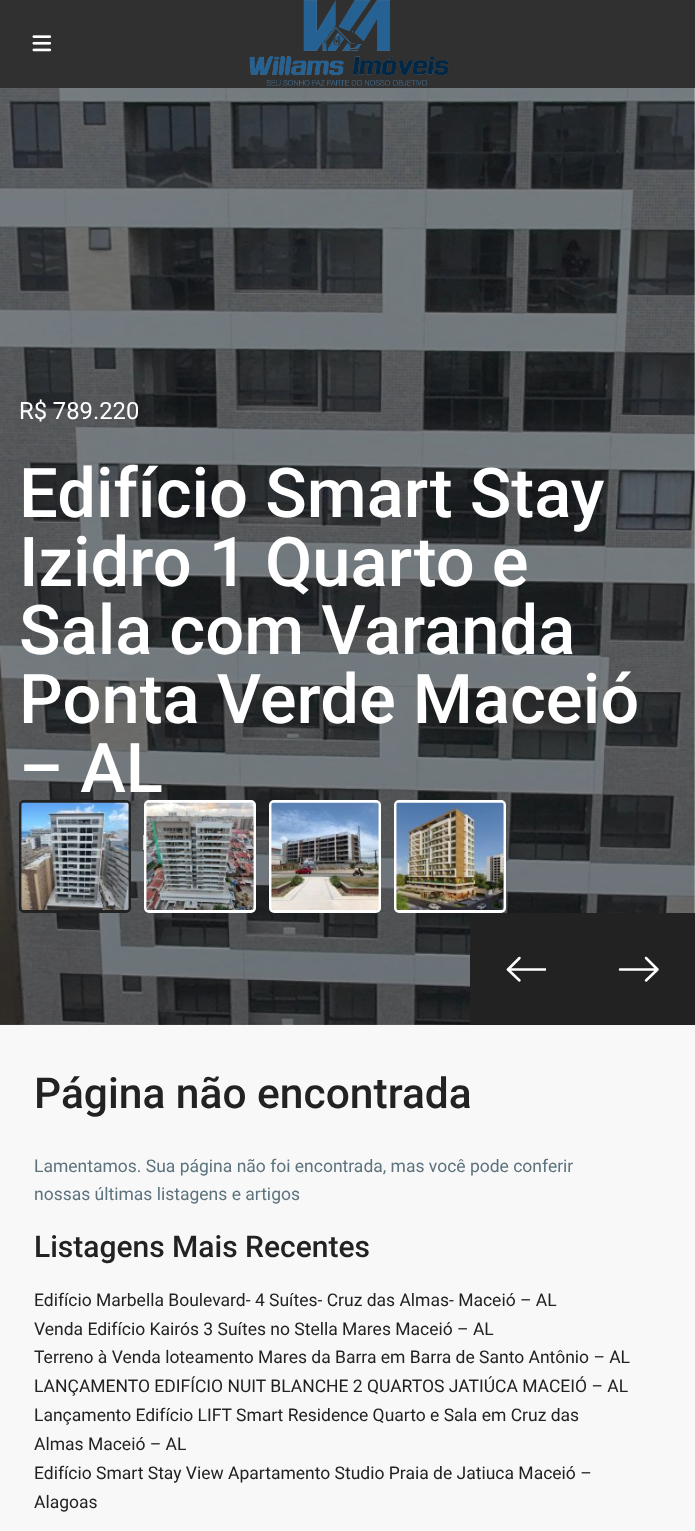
(async () => {
    const canvas = document.querySelector("canvas");
    canvas.width = 695;
    canvas.height = 1531;
    const context = canvas.getContext("2d");
    context.miterLimit = 4;
    context.fontKerning = "normal";
    function write(s, x, y, font, color) {
        context.font = font;
        context.fillStyle = color;
        context.fillText(s, x, y);
    }
    function block(x, y, w, h, color) {
        context.fillStyle = color;
        context.fillRect(x, y, w, h);
    }
    async function photo(src, x, y, w, h) {
        const img = new Image();
        img.src = src;
        await img.decode();
        context.drawImage(img, x, y, w, h);
    }

    block(0, 0, 695, 1531, "rgb(248, 248, 248)");
    block(0, 0, 695, 88, "rgb(48, 48, 48)");
    await photo("media/1.png", 32, 35, 20, 17);
    await photo("media/2.png", 249, 0, 200, 86);
    await photo("media/3.png", 0, 88, 695, 937);
    write("R$ 789.220", 19, 419, "23.75px Roboto", "rgb(255, 255, 255)");
    write("Edifício Smart Stay", 19, 517, "500 68.75px Roboto", "rgb(255, 255, 255)");
    write("Izidro 1 Quarto e", 19, 586, "500 68.75px Roboto", "rgb(255, 255, 255)");
    write("Sala com Varanda", 19, 654, "500 68.75px Roboto", "rgb(255, 255, 255)");
    write("Ponta Verde Maceió", 19, 723, "500 68.75px Roboto", "rgb(255, 255, 255)");
    write("– AL", 19, 792, "500 68.75px Roboto", "rgb(255, 255, 255)");
    block(143, 835, 1, 15, "rgb(195, 193, 193)");
    block(470, 913, 225, 112, "rgb(34, 34, 34)");
    context.save();
    context.beginPath();
    context.rect(506, 956, 40, 27);
    context.clip();
    context.beginPath();
    context.moveTo(545.5, 969.5);
    context.lineTo(508, 969.5);
    context.strokeStyle = "rgb(255, 255, 255)";
    context.lineWidth = 2.5;
    context.lineCap = "round";
    context.stroke();
    context.restore();
    context.beginPath();
    context.moveTo(519.5, 958);
    context.lineTo(508, 969.5);
    context.moveTo(519.5, 980.5);
    context.lineTo(508, 969.5);
    context.strokeStyle = "rgb(255, 255, 255)";
    context.lineWidth = 2.5;
    context.lineCap = "round";
    context.stroke();
    context.beginPath();
    context.moveTo(620, 969.5);
    context.lineTo(657.5, 969.5);
    context.moveTo(646, 958);
    context.lineTo(657.5, 969.5);
    context.moveTo(646, 980.5);
    context.lineTo(657.5, 969.5);
    context.stroke();
    context.beginPath();
    context.roundRect(20.5, 801.5, 109, 110, 3.5);
    context.strokeStyle = "rgb(34, 34, 34)";
    context.lineWidth = 3;
    context.stroke();
    await photo("media/4.png", 21, 802, 108, 108);
    context.beginPath();
    context.roundRect(145.5, 801.5, 109, 110, 3.5);
    context.strokeStyle = "rgb(255, 255, 255)";
    context.stroke();
    await photo("media/5.png", 146, 802, 108, 108);
    context.beginPath();
    context.roundRect(270.5, 801.5, 109, 110, 3.5);
    context.stroke();
    await photo("media/6.png", 271, 802, 108, 108);
    context.beginPath();
    context.roundRect(395.5, 801.5, 109, 110, 3.5);
    context.stroke();
    await photo("media/7.png", 396, 802, 108, 108);
    write("Página não encontrada", 34, 1108, "500 42.5px Roboto", "rgb(34, 34, 34)");
    write("Lamentamos. Sua página não foi encontrada, mas você pode conferir", 34, 1172, "17.5px Roboto", "rgb(92, 114, 125)");
    write("nossas últimas listagens e artigos", 34, 1200, "17.5px Roboto", "rgb(92, 114, 125)");
    write("Listagens Mais Recentes", 34, 1257, "500 30px Roboto", "rgb(34, 34, 34)");
    write("Edifício Marbella Boulevard- 4 Suítes- Cruz das Almas- Maceió – AL", 34, 1306, "17.5px Roboto", "rgb(34, 34, 34)");
    write("Venda Edifício Kairós 3 Suítes no Stella Mares Maceió – AL", 34, 1335, "17.5px Roboto", "rgb(34, 34, 34)");
    write("Terreno à Venda loteamento Mares da Barra em Barra de Santo Antônio – AL", 34, 1363, "17.5px Roboto", "rgb(34, 34, 34)");
    write("LANÇAMENTO EDIFÍCIO NUIT BLANCHE 2 QUARTOS JATIÚCA MACEIÓ – AL", 34, 1392, "17.5px Roboto", "rgb(34, 34, 34)");
    write("Lançamento Edifício LIFT Smart Residence Quarto e Sala em Cruz das", 34, 1421, "17.5px Roboto", "rgb(34, 34, 34)");
    write("Almas Maceió – AL", 34, 1450, "17.5px Roboto", "rgb(34, 34, 34)");
    write("Edifício Smart Stay View Apartamento Studio Praia de Jatiuca Maceió –", 34, 1479, "17.5px Roboto", "rgb(34, 34, 34)");
    write("Alagoas", 34, 1508, "17.5px Roboto", "rgb(34, 34, 34)");
})();
